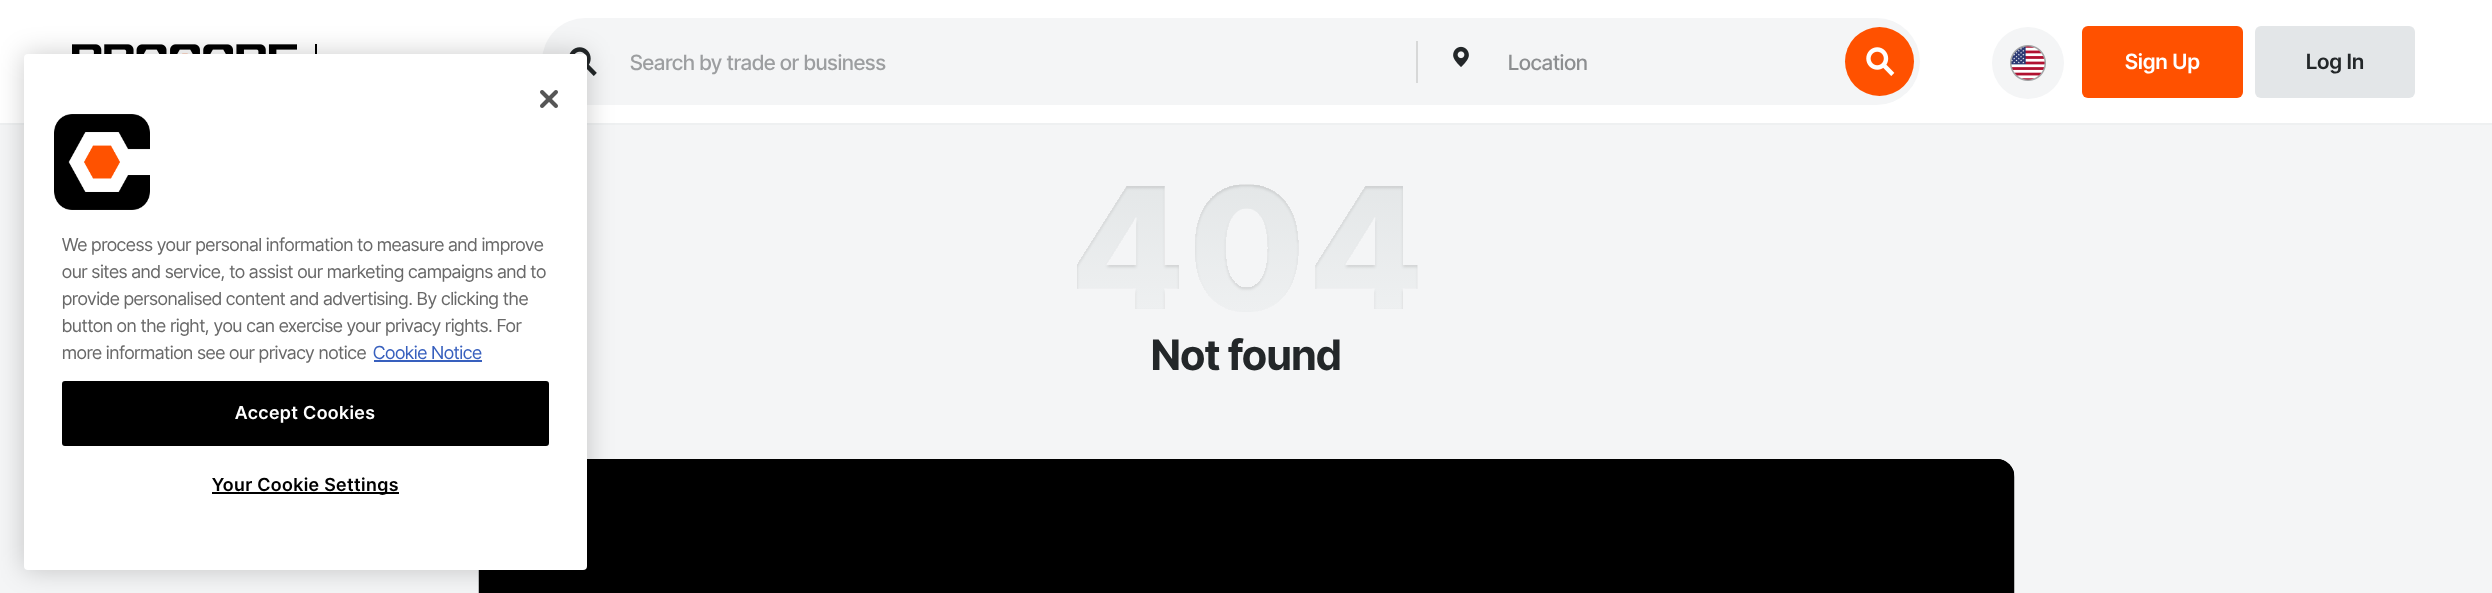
(async () => {
    const canvas = document.querySelector("canvas");
    canvas.width = 2492;
    canvas.height = 593;
    const context = canvas.getContext("2d");
    context.miterLimit = 4;
    context.fontKerning = "normal";
    function write(s, x, y, font, color) {
        context.font = font;
        context.fillStyle = color;
        context.fillText(s, x, y);
    }
    function block(x, y, w, h, color) {
        context.fillStyle = color;
        context.fillRect(x, y, w, h);
    }
    function card(x, y, w, h, r, color) {
        context.fillStyle = color;
        context.beginPath();
        context.roundRect(x, y, w, h, r);
        context.fill();
    }
    async function photo(src, x, y, w, h) {
        const img = new Image();
        img.src = src;
        await img.decode();
        context.drawImage(img, x, y, w, h);
    }

    block(0, 0, 2492, 593, "rgb(244, 245, 246)");
    block(0, 0, 2492, 123, "rgb(255, 255, 255)");
    block(0, 123, 2492, 2, "rgb(238, 240, 241)");
    await photo("media/3.png", 72, 44, 225, 10);
    block(315, 44, 2, 10, "rgb(0, 0, 0)");
    card(542, 18, 1378, 87, 43.5, "rgb(244, 245, 246)");
    await photo("media/4.png", 569, 47, 28, 29);
    await photo("media/9.png", 478, 459, 1537, 134);
    context.fillStyle = "rgba(0, 0, 0, 0.2)";
    context.filter = "blur(13.5px)";
    context.beginPath();
    context.roundRect(24, 54, 563, 516, 4);
    context.fill();
    context.filter = "none";
    card(24, 54, 563, 516, 4, "rgb(255, 255, 255)");
    await photo("media/1.png", 540, 90, 18, 18);
    await photo("media/2.png", 54, 114, 96, 96);
    write("We process your personal information to measure and improve", 62, 251, "18px Inter Tight", "rgb(105, 105, 105)");
    write("our sites and service, to assist our marketing campaigns and to", 62, 278, "18px Inter Tight", "rgb(105, 105, 105)");
    write("provide personalised content and advertising. By clicking the", 62, 305, "18px Inter Tight", "rgb(105, 105, 105)");
    write("button on the right, you can exercise your privacy rights. For", 62, 332, "18px Inter Tight", "rgb(105, 105, 105)");
    write("more information see our privacy notice", 62, 359, "18px Inter Tight", "rgb(105, 105, 105)");
    write("Cookie Notice", 373, 359, "18px Inter Tight", "rgb(56, 96, 190)");
    block(374, 360, 108, 2, "rgb(56, 96, 190)");
    context.fillStyle = "rgb(0, 0, 0)";
    context.beginPath();
    context.roundRect(63, 382, 485, 63, 2);
    context.fill();
    context.strokeStyle = "rgb(0, 0, 0)";
    context.lineWidth = 2;
    context.stroke();
    context.letterSpacing = "0.9px";
    write("Accept Cookies", 235, 419, "600 18px Inter Tight", "rgb(255, 255, 255)");
    block(212, 492, 187, 2, "rgb(0, 0, 0)");
    write("Your Cookie Settings", 212, 491, "600 18px Inter Tight", "rgb(0, 0, 0)");
    context.letterSpacing = "0px";
    write("Search by trade or business", 630, 70, "500 21px Inter Tight", "rgb(156, 158, 160)");
    block(1416, 41, 2, 42, "rgb(215, 216, 216)");
    await photo("media/5.png", 1453, 46, 16, 21);
    write("Location", 1508, 70, "500 21px Inter Tight", "rgb(140, 142, 144)");
    context.fillStyle = "rgb(255, 81, 0)";
    context.beginPath();
    context.arc(1879.5, 61.5, 34.5, 0, Math.PI * 2);
    context.fill();
    await photo("media/6.png", 1866, 47, 29, 29);
    context.fillStyle = "rgb(244, 245, 246)";
    context.beginPath();
    context.arc(2028, 63, 36, 0, Math.PI * 2);
    context.fill();
    await photo("media/7.png", 2010, 45, 36, 36);
    card(2082, 26, 161, 72, 6, "rgb(255, 81, 0)");
    context.letterSpacing = "0.25px";
    write("Sign Up", 2125, 69, "600 21px Inter Tight", "rgb(255, 255, 255)");
    card(2255, 26, 160, 72, 6, "rgb(227, 230, 232)");
    write("Log In", 2306, 69, "600 21px Inter Tight", "rgb(35, 39, 41)");
    await photo("media/8.png", 1077, 184, 341, 128);
    context.letterSpacing = "0px";
    write("Not found", 1151, 370, "bold 42px Inter Tight", "rgb(35, 39, 41)");
})();
